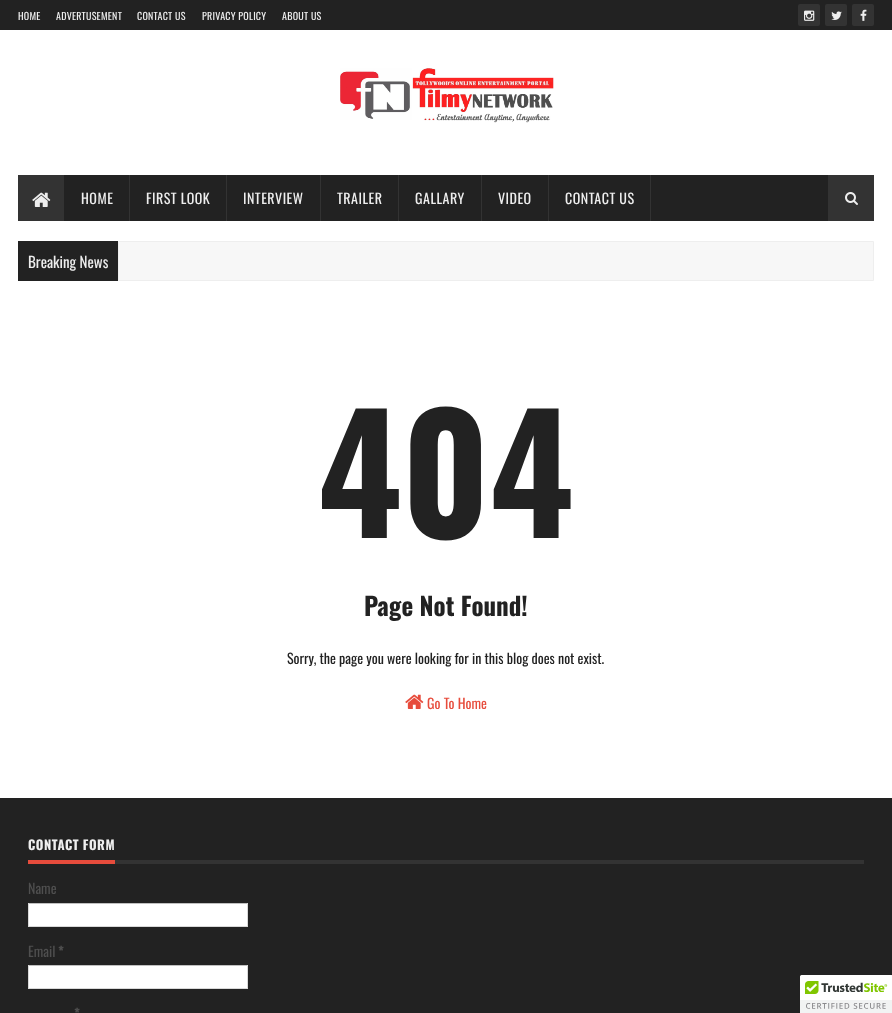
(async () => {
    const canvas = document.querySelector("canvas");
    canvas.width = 892;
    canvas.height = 1013;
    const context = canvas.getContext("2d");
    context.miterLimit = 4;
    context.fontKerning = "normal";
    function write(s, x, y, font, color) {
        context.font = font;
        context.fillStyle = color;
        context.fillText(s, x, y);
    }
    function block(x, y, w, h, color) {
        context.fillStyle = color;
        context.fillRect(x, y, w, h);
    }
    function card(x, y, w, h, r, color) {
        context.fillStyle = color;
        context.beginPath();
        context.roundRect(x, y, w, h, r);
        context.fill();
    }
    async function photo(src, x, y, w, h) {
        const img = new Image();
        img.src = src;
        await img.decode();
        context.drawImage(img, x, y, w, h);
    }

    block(0, 0, 892, 1013, "rgb(255, 255, 255)");
    block(0, 0, 892, 30, "rgb(34, 34, 34)");
    context.letterSpacing = "0.25px";
    write("HOME", 18, 20, "10px Oswald", "rgb(238, 238, 238)");
    write("ADVERTUSEMENT", 56, 20, "10px Oswald", "rgb(238, 238, 238)");
    write("CONTACT US", 137, 20, "10px Oswald", "rgb(238, 238, 238)");
    write("PRIVACY POLICY", 202, 20, "10px Oswald", "rgb(238, 238, 238)");
    write("ABOUT US", 282, 20, "10px Oswald", "rgb(238, 238, 238)");
    card(798, 4, 22, 22, 2, "rgb(51, 51, 51)");
    await photo("media/1.png", 804, 10, 11, 11);
    card(825, 4, 22, 22, 2, "rgb(51, 51, 51)");
    await photo("media/2.png", 831, 11, 11, 9);
    card(852, 4, 22, 22, 2, "rgb(51, 51, 51)");
    await photo("media/3.png", 860, 9, 7, 12);
    await photo("media/4.png", 340, 68, 214, 55);
    block(64, 175, 764, 46, "rgb(34, 34, 34)");
    block(18, 175, 46, 46, "rgb(51, 51, 51)");
    await photo("media/5.png", 32, 192, 19, 15);
    block(129, 175, 1, 46, "rgb(51, 51, 51)");
    context.letterSpacing = "0.5px";
    write("HOME", 81, 204, "14px Oswald", "rgb(238, 238, 238)");
    block(226, 175, 1, 46, "rgb(51, 51, 51)");
    write("FIRST LOOK", 146, 204, "14px Oswald", "rgb(238, 238, 238)");
    block(320, 175, 1, 46, "rgb(51, 51, 51)");
    write("INTERVIEW", 243, 204, "14px Oswald", "rgb(238, 238, 238)");
    block(398, 175, 1, 46, "rgb(51, 51, 51)");
    write("TRAILER", 337, 204, "14px Oswald", "rgb(238, 238, 238)");
    block(481, 175, 1, 46, "rgb(51, 51, 51)");
    write("GALLARY", 415, 204, "14px Oswald", "rgb(238, 238, 238)");
    block(548, 175, 1, 46, "rgb(51, 51, 51)");
    write("VIDEO", 498, 204, "14px Oswald", "rgb(238, 238, 238)");
    block(650, 175, 1, 46, "rgb(51, 51, 51)");
    write("CONTACT US", 565, 204, "14px Oswald", "rgb(238, 238, 238)");
    block(828, 175, 46, 46, "rgb(51, 51, 51)");
    await photo("media/6.png", 845, 192, 13, 13);
    block(18, 241, 100, 40, "rgb(34, 34, 34)");
    context.letterSpacing = "0px";
    write("Breaking News", 28, 268, "15px Oswald", "rgb(238, 238, 238)");
    context.fillStyle = "rgb(247, 247, 247)";
    context.beginPath();
    context.rect(118.5, 241.5, 755, 39);
    context.fill();
    context.strokeStyle = "rgb(238, 238, 238)";
    context.stroke();
    write("404", 318, 538, "bold 160px Oswald", "rgb(34, 34, 34)");
    write("Page Not Found!", 364, 616, "bold 25px Oswald", "rgb(34, 34, 34)");
    write("Sorry, the page you were looking for in this blog does not exist.", 287, 664, "14px Oswald", "rgb(34, 34, 34)");
    await photo("media/7.png", 405, 694, 19, 15);
    write("Go To Home", 427, 709, "14px Oswald", "rgb(231, 76, 60)");
    block(0, 798, 892, 215, "rgb(34, 34, 34)");
    block(115, 860, 749, 4, "rgb(51, 51, 51)");
    block(28, 860, 87, 4, "rgb(231, 76, 60)");
    context.letterSpacing = "0.5px";
    write("CONTACT FORM", 28, 850, "bold 13px Oswald", "rgb(238, 238, 238)");
    context.letterSpacing = "0px";
    write("Name", 28, 894, "14px Oswald", "rgb(79, 79, 79)");
    block(29, 904, 218, 22, "rgb(255, 255, 255)");
    block(28, 903, 220, 1, "rgb(192, 192, 192)");
    block(247, 903, 1, 24, "rgb(217, 217, 217)");
    block(28, 926, 220, 1, "rgb(217, 217, 217)");
    block(28, 903, 1, 24, "rgb(217, 217, 217)");
    write("Email", 28, 957, "14px Oswald", "rgb(79, 79, 79)");
    write("*", 58, 957, "bold 14px Oswald", "rgb(79, 79, 79)");
    block(29, 966, 218, 22, "rgb(255, 255, 255)");
    block(28, 965, 220, 1, "rgb(192, 192, 192)");
    block(247, 965, 1, 24, "rgb(217, 217, 217)");
    block(28, 988, 220, 1, "rgb(217, 217, 217)");
    block(28, 965, 1, 24, "rgb(217, 217, 217)");
    write("*", 74, 1019, "bold 14px Oswald", "rgb(79, 79, 79)");
    context.fillStyle = "rgb(255, 255, 255)";
    context.beginPath();
    context.roundRect(800, 975, 92, 38, [2, 0, 0, 0]);
    context.fill();
    await photo("media/8.png", 800, 975, 92, 38);
})();
